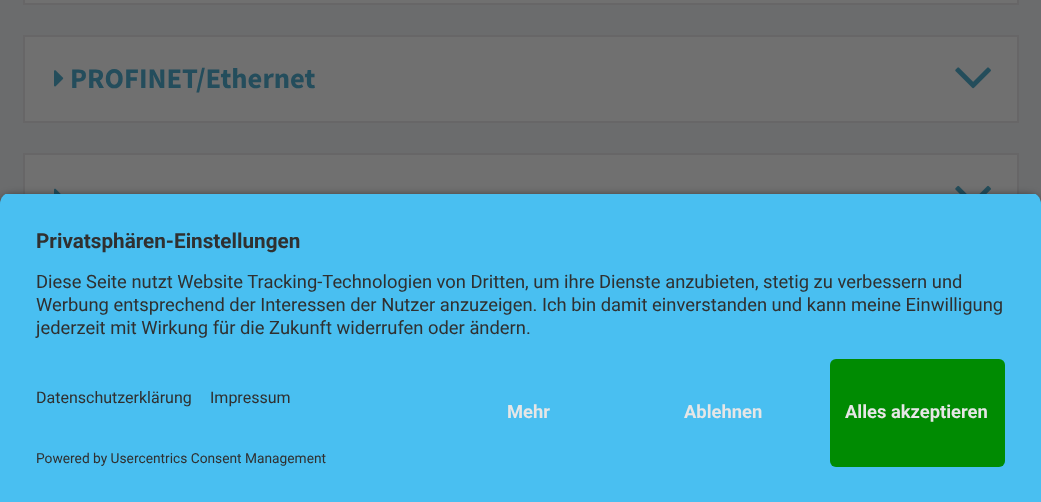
(async () => {
    const canvas = document.querySelector("canvas");
    canvas.width = 1041;
    canvas.height = 502;
    const context = canvas.getContext("2d");
    context.miterLimit = 4;
    context.fontKerning = "normal";
    function write(s, x, y, font, color) {
        context.font = font;
        context.fillStyle = color;
        context.fillText(s, x, y);
    }
    function block(x, y, w, h, color) {
        context.fillStyle = color;
        context.fillRect(x, y, w, h);
    }
    function card(x, y, w, h, r, color) {
        context.fillStyle = color;
        context.beginPath();
        context.roundRect(x, y, w, h, r);
        context.fill();
    }
    async function photo(src, x, y, w, h) {
        const img = new Image();
        img.src = src;
        await img.decode();
        context.drawImage(img, x, y, w, h);
    }

    block(0, 0, 1041, 502, "rgb(107, 108, 109)");
    context.fillStyle = "rgb(112, 112, 112)";
    context.beginPath();
    context.rect(24, -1, 994, 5);
    context.fill();
    context.strokeStyle = "rgb(103, 102, 103)";
    context.lineWidth = 2;
    context.stroke();
    context.beginPath();
    context.rect(24, 36, 994, 86);
    context.fill();
    context.stroke();
    await photo("media/1.png", 54, 70, 10, 17);
    write("PROFINET/Ethernet", 70, 88, "bold 28.5px Source Sans Pro", "rgb(36, 77, 92)");
    await photo("media/2.png", 955, 67, 36, 22);
    block(25, 155, 992, 39, "rgb(112, 112, 112)");
    context.strokeRect(24, 154, 994, 85);
    await photo("media/3.png", 54, 188, 7, 6);
    await photo("media/4.png", 955, 185, 36, 9);
    context.fillStyle = "rgba(0, 0, 0, 0.8)";
    context.filter = "blur(5px)";
    context.beginPath();
    context.roundRect(0, 197, 1041, 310, 12);
    context.fill();
    context.filter = "none";
    context.save();
    context.beginPath();
    context.roundRect(0, 192, 1041, 155, [12, 12, 0, 0]);
    context.clip();
    block(0, 194, 1041, 153, "rgb(73, 191, 241)");
    context.restore();
    write("Privatsphären-Einstellungen", 36, 248, "bold 20.7px Roboto", "rgb(48, 48, 48)");
    write("Diese Seite nutzt Website Tracking-Technologien von Dritten, um ihre Dienste anzubieten, stetig zu verbessern und", 36, 288, "18.38px Roboto", "rgb(48, 48, 48)");
    write("Werbung entsprechend der Interessen der Nutzer anzuzeigen. Ich bin damit einverstanden und kann meine Einwilligung", 36, 311, "18.38px Roboto", "rgb(48, 48, 48)");
    write("jederzeit mit Wirkung für die Zukunft widerrufen oder ändern.", 36, 334, "18.38px Roboto", "rgb(48, 48, 48)");
    block(0, 347, 1041, 155, "rgb(73, 191, 241)");
    write("Datenschutzerklärung", 36, 403, "16px Roboto", "rgb(48, 48, 48)");
    write("Impressum", 210, 403, "16px Roboto", "rgb(48, 48, 48)");
    write("Powered by Usercentrics Consent Management", 36, 463, "13.75px Roboto", "rgb(48, 48, 48)");
    write("Mehr", 507, 418, "bold 18.38px Roboto", "rgb(230, 230, 230)");
    write("Ablehnen", 684, 418, "bold 18.38px Roboto", "rgb(230, 230, 230)");
    card(830, 359, 175, 108, 6, "rgb(0, 139, 2)");
    write("Alles akzeptieren", 845, 418, "bold 18.38px Roboto", "rgb(230, 230, 230)");
})();
